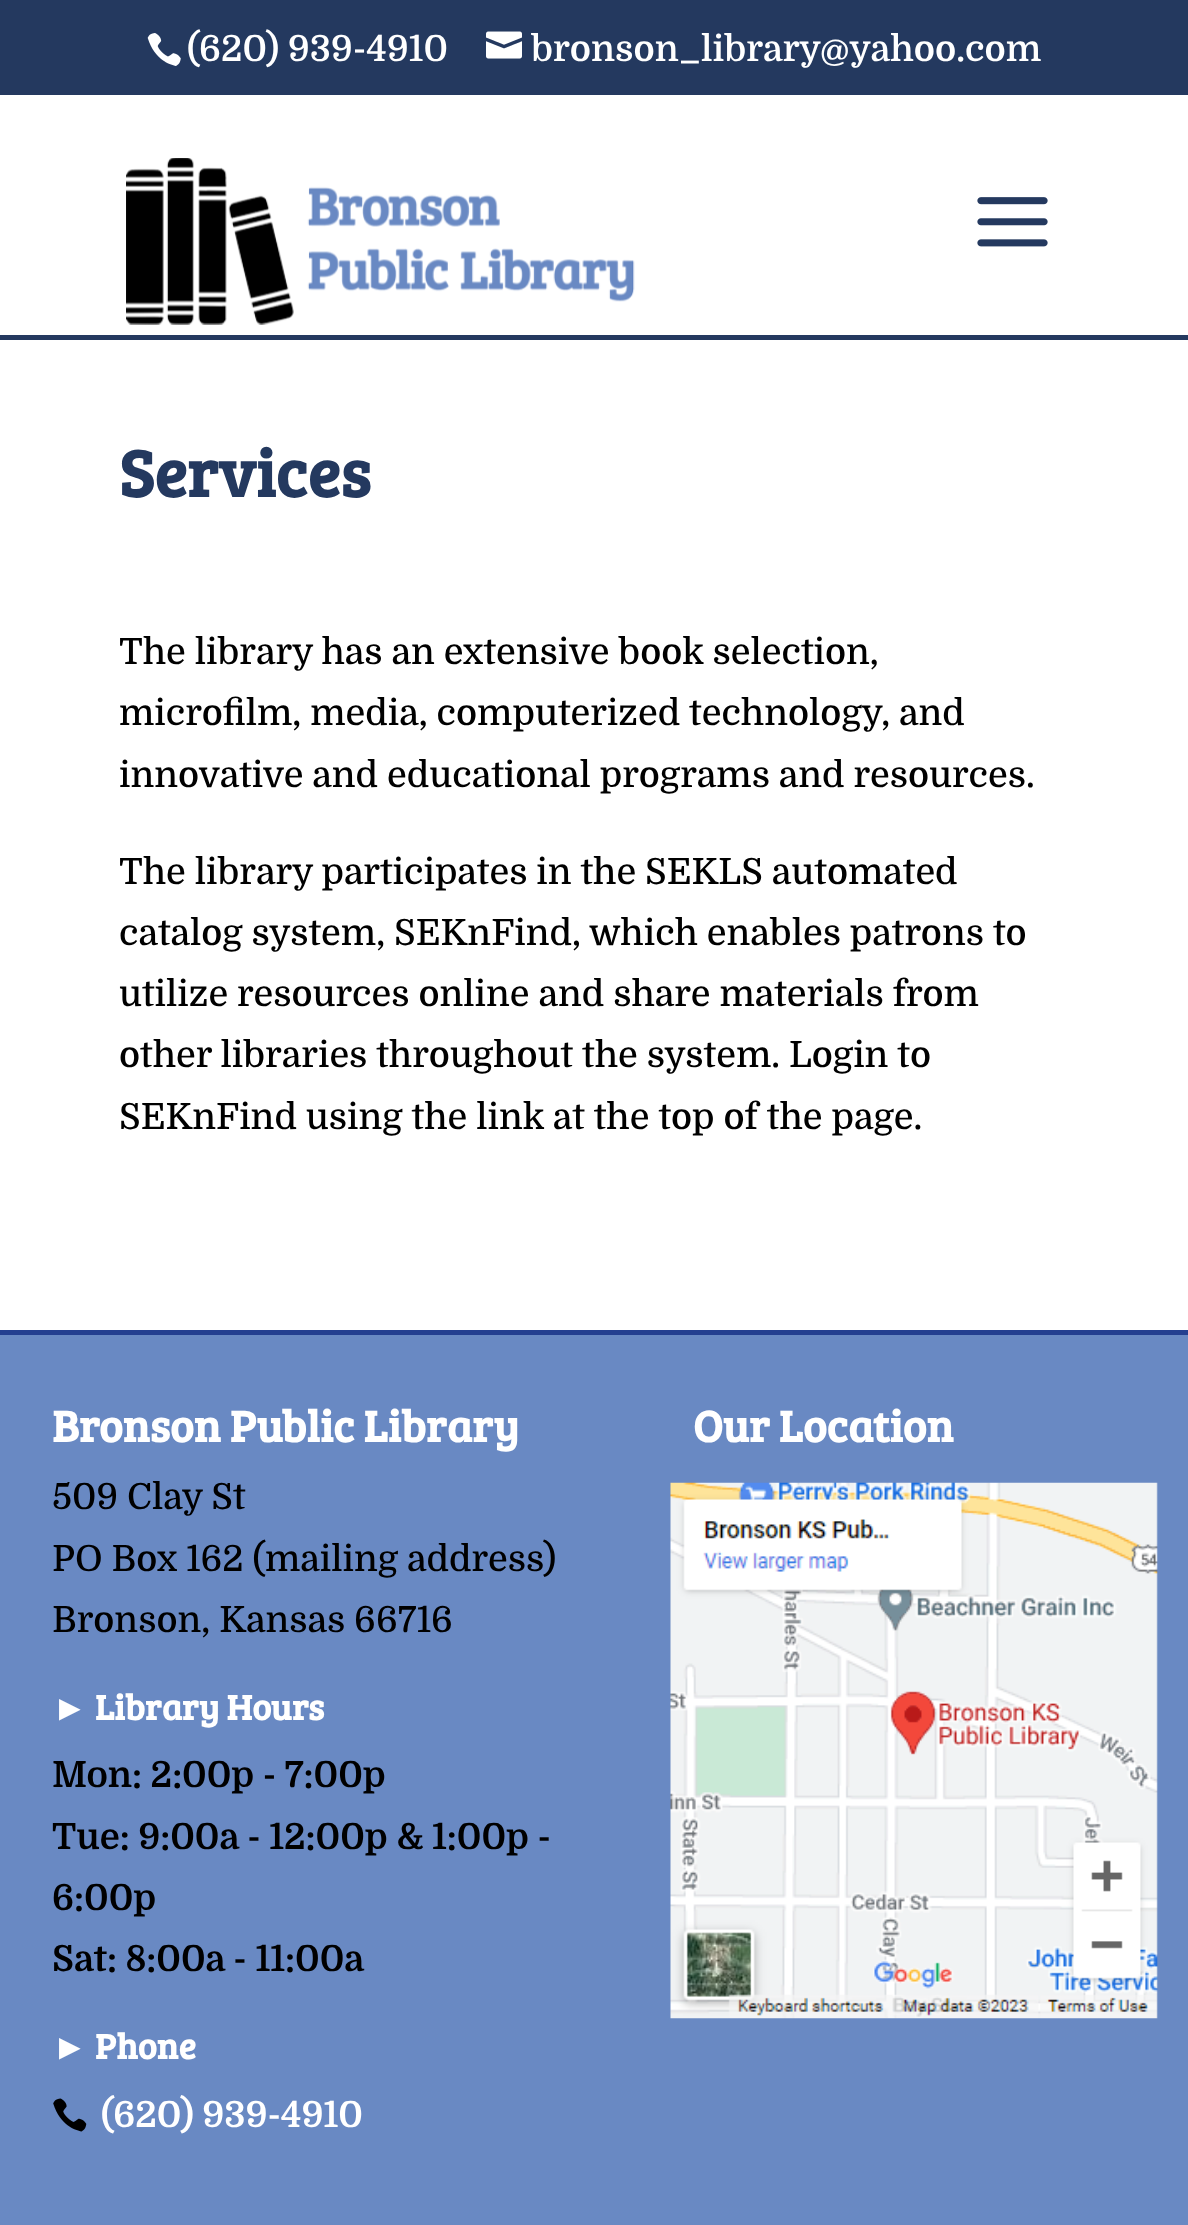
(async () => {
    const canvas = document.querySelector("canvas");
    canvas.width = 1188;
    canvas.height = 2225;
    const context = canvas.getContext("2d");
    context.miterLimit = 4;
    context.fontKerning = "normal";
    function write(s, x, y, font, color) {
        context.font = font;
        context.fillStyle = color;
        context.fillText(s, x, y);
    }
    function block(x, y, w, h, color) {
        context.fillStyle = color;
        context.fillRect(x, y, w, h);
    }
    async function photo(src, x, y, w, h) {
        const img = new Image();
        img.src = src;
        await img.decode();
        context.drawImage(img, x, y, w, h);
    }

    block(0, 0, 1188, 2225, "rgb(255, 255, 255)");
    block(0, 0, 1188, 95, "rgb(36, 57, 95)");
    await photo("media/1.png", 147, 33, 34, 33);
    write("(620) 939-4910", 187, 61, "600 36px Domine", "rgb(255, 255, 255)");
    await photo("media/2.png", 486, 31, 36, 28);
    write("bronson_library@yahoo.com", 531, 61, "600 36px Domine", "rgb(255, 255, 255)");
    block(0, 335, 1188, 5, "rgb(36, 57, 95)");
    await photo("media/3.png", 126, 158, 509, 167);
    await photo("media/4.png", 977, 197, 71, 50);
    write("Services", 119, 497, "bold 67.5px Bree Serif", "rgb(36, 57, 95)");
    write("The library has an extensive book selection,", 119, 664, "500 36px Domine", "rgb(0, 0, 0)");
    write("microfilm, media, computerized technology, and", 119, 725, "500 36px Domine", "rgb(0, 0, 0)");
    write("innovative and educational programs and resources.", 119, 787, "500 36px Domine", "rgb(0, 0, 0)");
    write("The library participates in the SEKLS automated", 119, 884, "500 36px Domine", "rgb(0, 0, 0)");
    write("catalog system, SEKnFind, which enables patrons to", 119, 945, "500 36px Domine", "rgb(0, 0, 0)");
    write("utilize resources online and share materials from", 119, 1006, "500 36px Domine", "rgb(0, 0, 0)");
    write("other libraries throughout the system. Login to", 119, 1067, "500 36px Domine", "rgb(0, 0, 0)");
    write("SEKnFind using the link at the top of the page.", 119, 1129, "500 36px Domine", "rgb(0, 0, 0)");
    block(0, 1335, 1188, 890, "rgb(105, 137, 195)");
    block(0, 1330, 1188, 5, "rgb(36, 63, 144)");
    write("Bronson Public Library", 52, 1442, "bold 45px Bree Serif", "rgb(255, 255, 255)");
    write("509 Clay St", 52, 1509, "500 36px Domine", "rgb(0, 0, 0)");
    write("PO Box 162 (mailing address)", 52, 1571, "500 36px Domine", "rgb(0, 0, 0)");
    write("Bronson, Kansas 66716", 52, 1632, "500 36px Domine", "rgb(0, 0, 0)");
    write("►", 52, 1720, "bold 36px Liberation Serif", "rgb(255, 255, 255)");
    write("Library Hours", 95, 1720, "bold 36px Bree Serif", "rgb(255, 255, 255)");
    write("Mon: 2:00p - 7:00p", 52, 1787, "bold 36px Domine", "rgb(0, 0, 0)");
    write("Tue: 9:00a - 12:00p & 1:00p -", 52, 1849, "bold 36px Domine", "rgb(0, 0, 0)");
    write("6:00p", 52, 1910, "bold 36px Domine", "rgb(0, 0, 0)");
    write("Sat: 8:00a - 11:00a", 52, 1971, "bold 36px Domine", "rgb(0, 0, 0)");
    write("►", 52, 2059, "bold 36px Liberation Serif", "rgb(255, 255, 255)");
    write("Phone", 95, 2059, "bold 36px Bree Serif", "rgb(255, 255, 255)");
    await photo("media/5.png", 53, 2098, 34, 34);
    write("(620) 939-4910", 101, 2127, "bold 36px Domine", "rgb(255, 255, 255)");
    write("Our Location", 693, 1442, "bold 45px Bree Serif", "rgb(255, 255, 255)");
    await photo("media/6.png", 670, 1482, 488, 537);
})();
